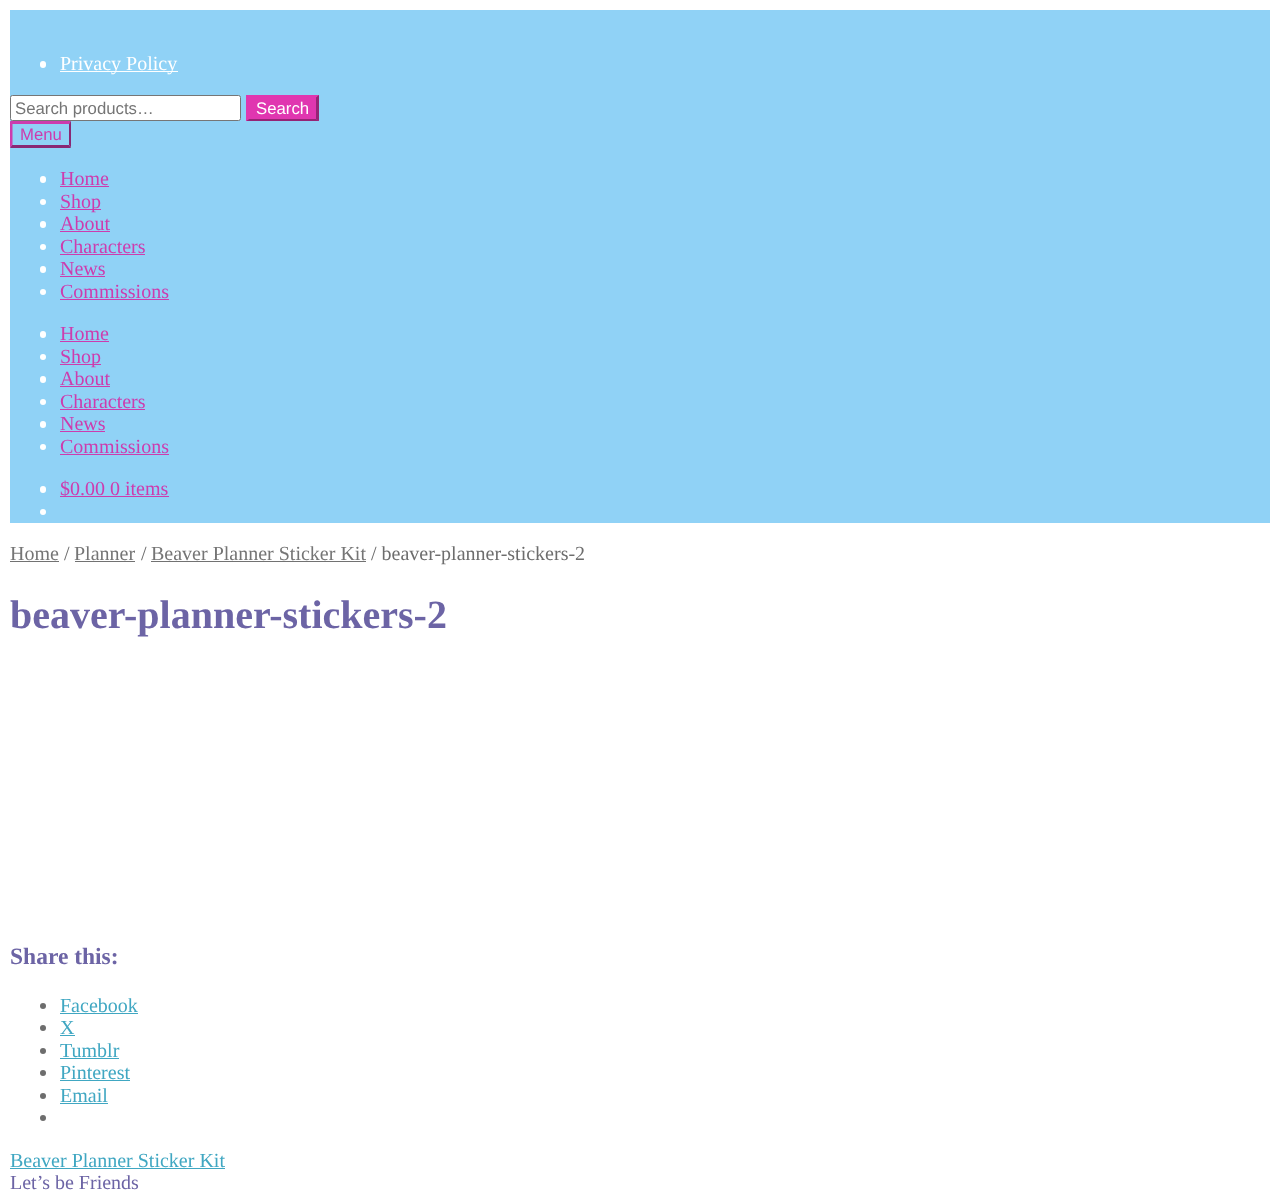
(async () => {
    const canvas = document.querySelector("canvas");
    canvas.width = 1280;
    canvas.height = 1196;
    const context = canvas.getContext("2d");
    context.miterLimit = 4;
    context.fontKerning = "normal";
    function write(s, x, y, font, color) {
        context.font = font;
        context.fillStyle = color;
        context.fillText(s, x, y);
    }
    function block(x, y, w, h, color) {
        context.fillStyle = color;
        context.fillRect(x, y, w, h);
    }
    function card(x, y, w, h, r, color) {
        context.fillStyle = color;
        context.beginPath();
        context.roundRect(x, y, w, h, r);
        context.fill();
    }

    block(0, 0, 1280, 1196, "rgb(255, 255, 255)");
    block(10, 10, 1260, 513, "rgb(144, 210, 246)");
    card(40, 61, 6, 7, 3, "rgb(255, 255, 255)");
    block(60, 71, 118, 1, "rgb(255, 255, 255)");
    write("Privacy Policy", 60, 70, "20px Liberation Serif", "rgb(255, 255, 255)");
    context.beginPath();
    context.roundRect(10.5, 95.5, 230, 25, 2);
    context.fill();
    context.strokeStyle = "rgb(118, 118, 118)";
    context.stroke();
    write("Search products…", 15, 114, "16.75px Liberation Sans", "rgb(117, 117, 117)");
    block(246, 95, 73, 26, "rgb(224, 54, 176)");
    context.fillStyle = "rgb(149, 36, 117)";
    context.beginPath();
    context.moveTo(319, 95);
    context.lineTo(319, 121);
    context.lineTo(316, 119);
    context.lineTo(316, 97.5);
    context.closePath();
    context.fill();
    context.beginPath();
    context.moveTo(319, 121);
    context.lineTo(246, 121);
    context.lineTo(249, 119);
    context.lineTo(316, 119);
    context.closePath();
    context.fill();
    context.fillStyle = "rgb(224, 54, 176)";
    context.beginPath();
    context.moveTo(246, 121);
    context.lineTo(246, 95);
    context.lineTo(249, 97.5);
    context.lineTo(249, 119);
    context.closePath();
    context.fill();
    write("Search", 256, 114, "16.75px Liberation Sans", "rgb(255, 255, 255)");
    context.fillStyle = "rgb(205, 60, 174)";
    context.beginPath();
    context.moveTo(10, 121);
    context.lineTo(71, 121);
    context.lineTo(69, 124);
    context.lineTo(12, 124);
    context.closePath();
    context.fill();
    context.fillStyle = "rgb(137, 40, 116)";
    context.beginPath();
    context.moveTo(71, 121);
    context.lineTo(71, 147.5);
    context.lineTo(69, 145);
    context.lineTo(69, 124);
    context.closePath();
    context.fill();
    context.beginPath();
    context.moveTo(71, 148);
    context.lineTo(10, 148);
    context.lineTo(12, 145);
    context.lineTo(69, 145);
    context.closePath();
    context.fill();
    context.fillStyle = "rgb(205, 60, 174)";
    context.beginPath();
    context.moveTo(10, 147.5);
    context.lineTo(10, 121);
    context.lineTo(12.5, 124);
    context.lineTo(12.5, 145);
    context.closePath();
    context.fill();
    write("Menu", 20, 140, "16.75px Liberation Sans", "rgb(205, 60, 174)");
    card(40, 176, 6, 7, 3, "rgb(255, 255, 255)");
    write("Home", 60, 185, "20px Liberation Serif", "rgb(205, 60, 174)");
    block(60, 186, 49, 1, "rgb(205, 60, 174)");
    context.fillStyle = "rgb(255, 255, 255)";
    context.beginPath();
    context.arc(43, 202, 3, 0, Math.PI * 2);
    context.fill();
    block(60, 209, 41, 1, "rgb(205, 60, 174)");
    write("Shop", 60, 208, "20px Liberation Serif", "rgb(205, 60, 174)");
    card(40, 221, 6, 7, 3, "rgb(255, 255, 255)");
    write("About", 60, 230, "20px Liberation Serif", "rgb(205, 60, 174)");
    block(60, 231, 50, 1, "rgb(205, 60, 174)");
    context.fillStyle = "rgb(255, 255, 255)";
    context.beginPath();
    context.arc(43, 247, 3, 0, Math.PI * 2);
    context.fill();
    write("Characters", 60, 253, "20px Liberation Serif", "rgb(205, 60, 174)");
    block(60, 254, 85, 1, "rgb(205, 60, 174)");
    card(40, 266, 6, 7, 3, "rgb(255, 255, 255)");
    write("News", 60, 275, "20px Liberation Serif", "rgb(205, 60, 174)");
    block(60, 276, 45, 1, "rgb(205, 60, 174)");
    context.fillStyle = "rgb(255, 255, 255)";
    context.beginPath();
    context.arc(43, 292, 3, 0, Math.PI * 2);
    context.fill();
    write("Commissions", 60, 298, "20px Liberation Serif", "rgb(205, 60, 174)");
    block(60, 299, 109, 1, "rgb(205, 60, 174)");
    card(40, 331, 6, 7, 3, "rgb(255, 255, 255)");
    write("Home", 60, 340, "20px Liberation Serif", "rgb(205, 60, 174)");
    block(60, 341, 49, 1, "rgb(205, 60, 174)");
    context.fillStyle = "rgb(255, 255, 255)";
    context.beginPath();
    context.arc(43, 357, 3, 0, Math.PI * 2);
    context.fill();
    block(60, 364, 41, 1, "rgb(205, 60, 174)");
    write("Shop", 60, 363, "20px Liberation Serif", "rgb(205, 60, 174)");
    card(40, 376, 6, 7, 3, "rgb(255, 255, 255)");
    write("About", 60, 385, "20px Liberation Serif", "rgb(205, 60, 174)");
    block(60, 386, 50, 1, "rgb(205, 60, 174)");
    context.fillStyle = "rgb(255, 255, 255)";
    context.beginPath();
    context.arc(43, 402, 3, 0, Math.PI * 2);
    context.fill();
    write("Characters", 60, 408, "20px Liberation Serif", "rgb(205, 60, 174)");
    block(60, 409, 85, 1, "rgb(205, 60, 174)");
    card(40, 421, 6, 7, 3, "rgb(255, 255, 255)");
    write("News", 60, 430, "20px Liberation Serif", "rgb(205, 60, 174)");
    block(60, 431, 45, 1, "rgb(205, 60, 174)");
    context.fillStyle = "rgb(255, 255, 255)";
    context.beginPath();
    context.arc(43, 447, 3, 0, Math.PI * 2);
    context.fill();
    write("Commissions", 60, 453, "20px Liberation Serif", "rgb(205, 60, 174)");
    block(60, 454, 109, 1, "rgb(205, 60, 174)");
    card(40, 486, 6, 7, 3, "rgb(255, 255, 255)");
    block(60, 496, 109, 1, "rgb(205, 60, 174)");
    write("$0.00 0 items", 60, 495, "20px Liberation Serif", "rgb(205, 60, 174)");
    context.fillStyle = "rgb(255, 255, 255)";
    context.beginPath();
    context.arc(43, 512, 3, 0, Math.PI * 2);
    context.fill();
    write("Home", 10, 560, "20px Liberation Serif", "rgb(117, 117, 117)");
    block(10, 561, 49, 1, "rgb(114, 114, 114)");
    write("/", 64, 560, "20px Liberation Serif", "rgb(109, 109, 109)");
    write("Planner", 74, 560, "20px Liberation Serif", "rgb(117, 117, 117)");
    block(75, 561, 60, 1, "rgb(114, 114, 114)");
    write("/", 141, 560, "20px Liberation Serif", "rgb(109, 109, 109)");
    write("Beaver Planner Sticker Kit", 151, 560, "20px Liberation Serif", "rgb(117, 117, 117)");
    block(151, 561, 215, 1, "rgb(114, 114, 114)");
    write("/ beaver-planner-stickers-2", 371, 560, "20px Liberation Serif", "rgb(109, 109, 109)");
    write("beaver-planner-stickers-2", 10, 628, "bold 40px Liberation Serif", "rgb(108, 100, 165)");
    write("Share this:", 10, 964, "bold 23.5px Liberation Serif", "rgb(108, 100, 165)");
    context.fillStyle = "rgb(109, 109, 109)";
    context.beginPath();
    context.arc(43, 1006, 3, 0, Math.PI * 2);
    context.fill();
    write("Facebook", 60, 1012, "20px Liberation Serif", "rgb(64, 167, 194)");
    block(60, 1013, 78, 1, "rgb(64, 167, 194)");
    context.fillStyle = "rgb(109, 109, 109)";
    context.beginPath();
    context.arc(43, 1028, 3, 0, Math.PI * 2);
    context.fill();
    write("X", 60, 1034, "20px Liberation Serif", "rgb(64, 167, 194)");
    block(60, 1035, 15, 1, "rgb(64, 167, 194)");
    context.fillStyle = "rgb(109, 109, 109)";
    context.beginPath();
    context.arc(43, 1051, 3, 0, Math.PI * 2);
    context.fill();
    write("Tumblr", 60, 1057, "20px Liberation Serif", "rgb(64, 167, 194)");
    block(60, 1058, 59, 1, "rgb(64, 167, 194)");
    context.fillStyle = "rgb(109, 109, 109)";
    context.beginPath();
    context.arc(43, 1073, 3, 0, Math.PI * 2);
    context.fill();
    write("Pinterest", 60, 1079, "20px Liberation Serif", "rgb(64, 167, 194)");
    block(60, 1080, 70, 1, "rgb(64, 167, 194)");
    context.fillStyle = "rgb(109, 109, 109)";
    context.beginPath();
    context.arc(43, 1096, 3, 0, Math.PI * 2);
    context.fill();
    write("Email", 60, 1102, "20px Liberation Serif", "rgb(64, 167, 194)");
    block(60, 1103, 48, 1, "rgb(64, 167, 194)");
    context.fillStyle = "rgb(109, 109, 109)";
    context.beginPath();
    context.arc(43, 1118, 3, 0, Math.PI * 2);
    context.fill();
    write("Beaver Planner Sticker Kit", 10, 1167, "20px Liberation Serif", "rgb(64, 167, 194)");
    block(10, 1168, 215, 1, "rgb(64, 167, 194)");
    write("Let’s be Friends", 10, 1189, "20px Liberation Serif", "rgb(108, 100, 165)");
})();
